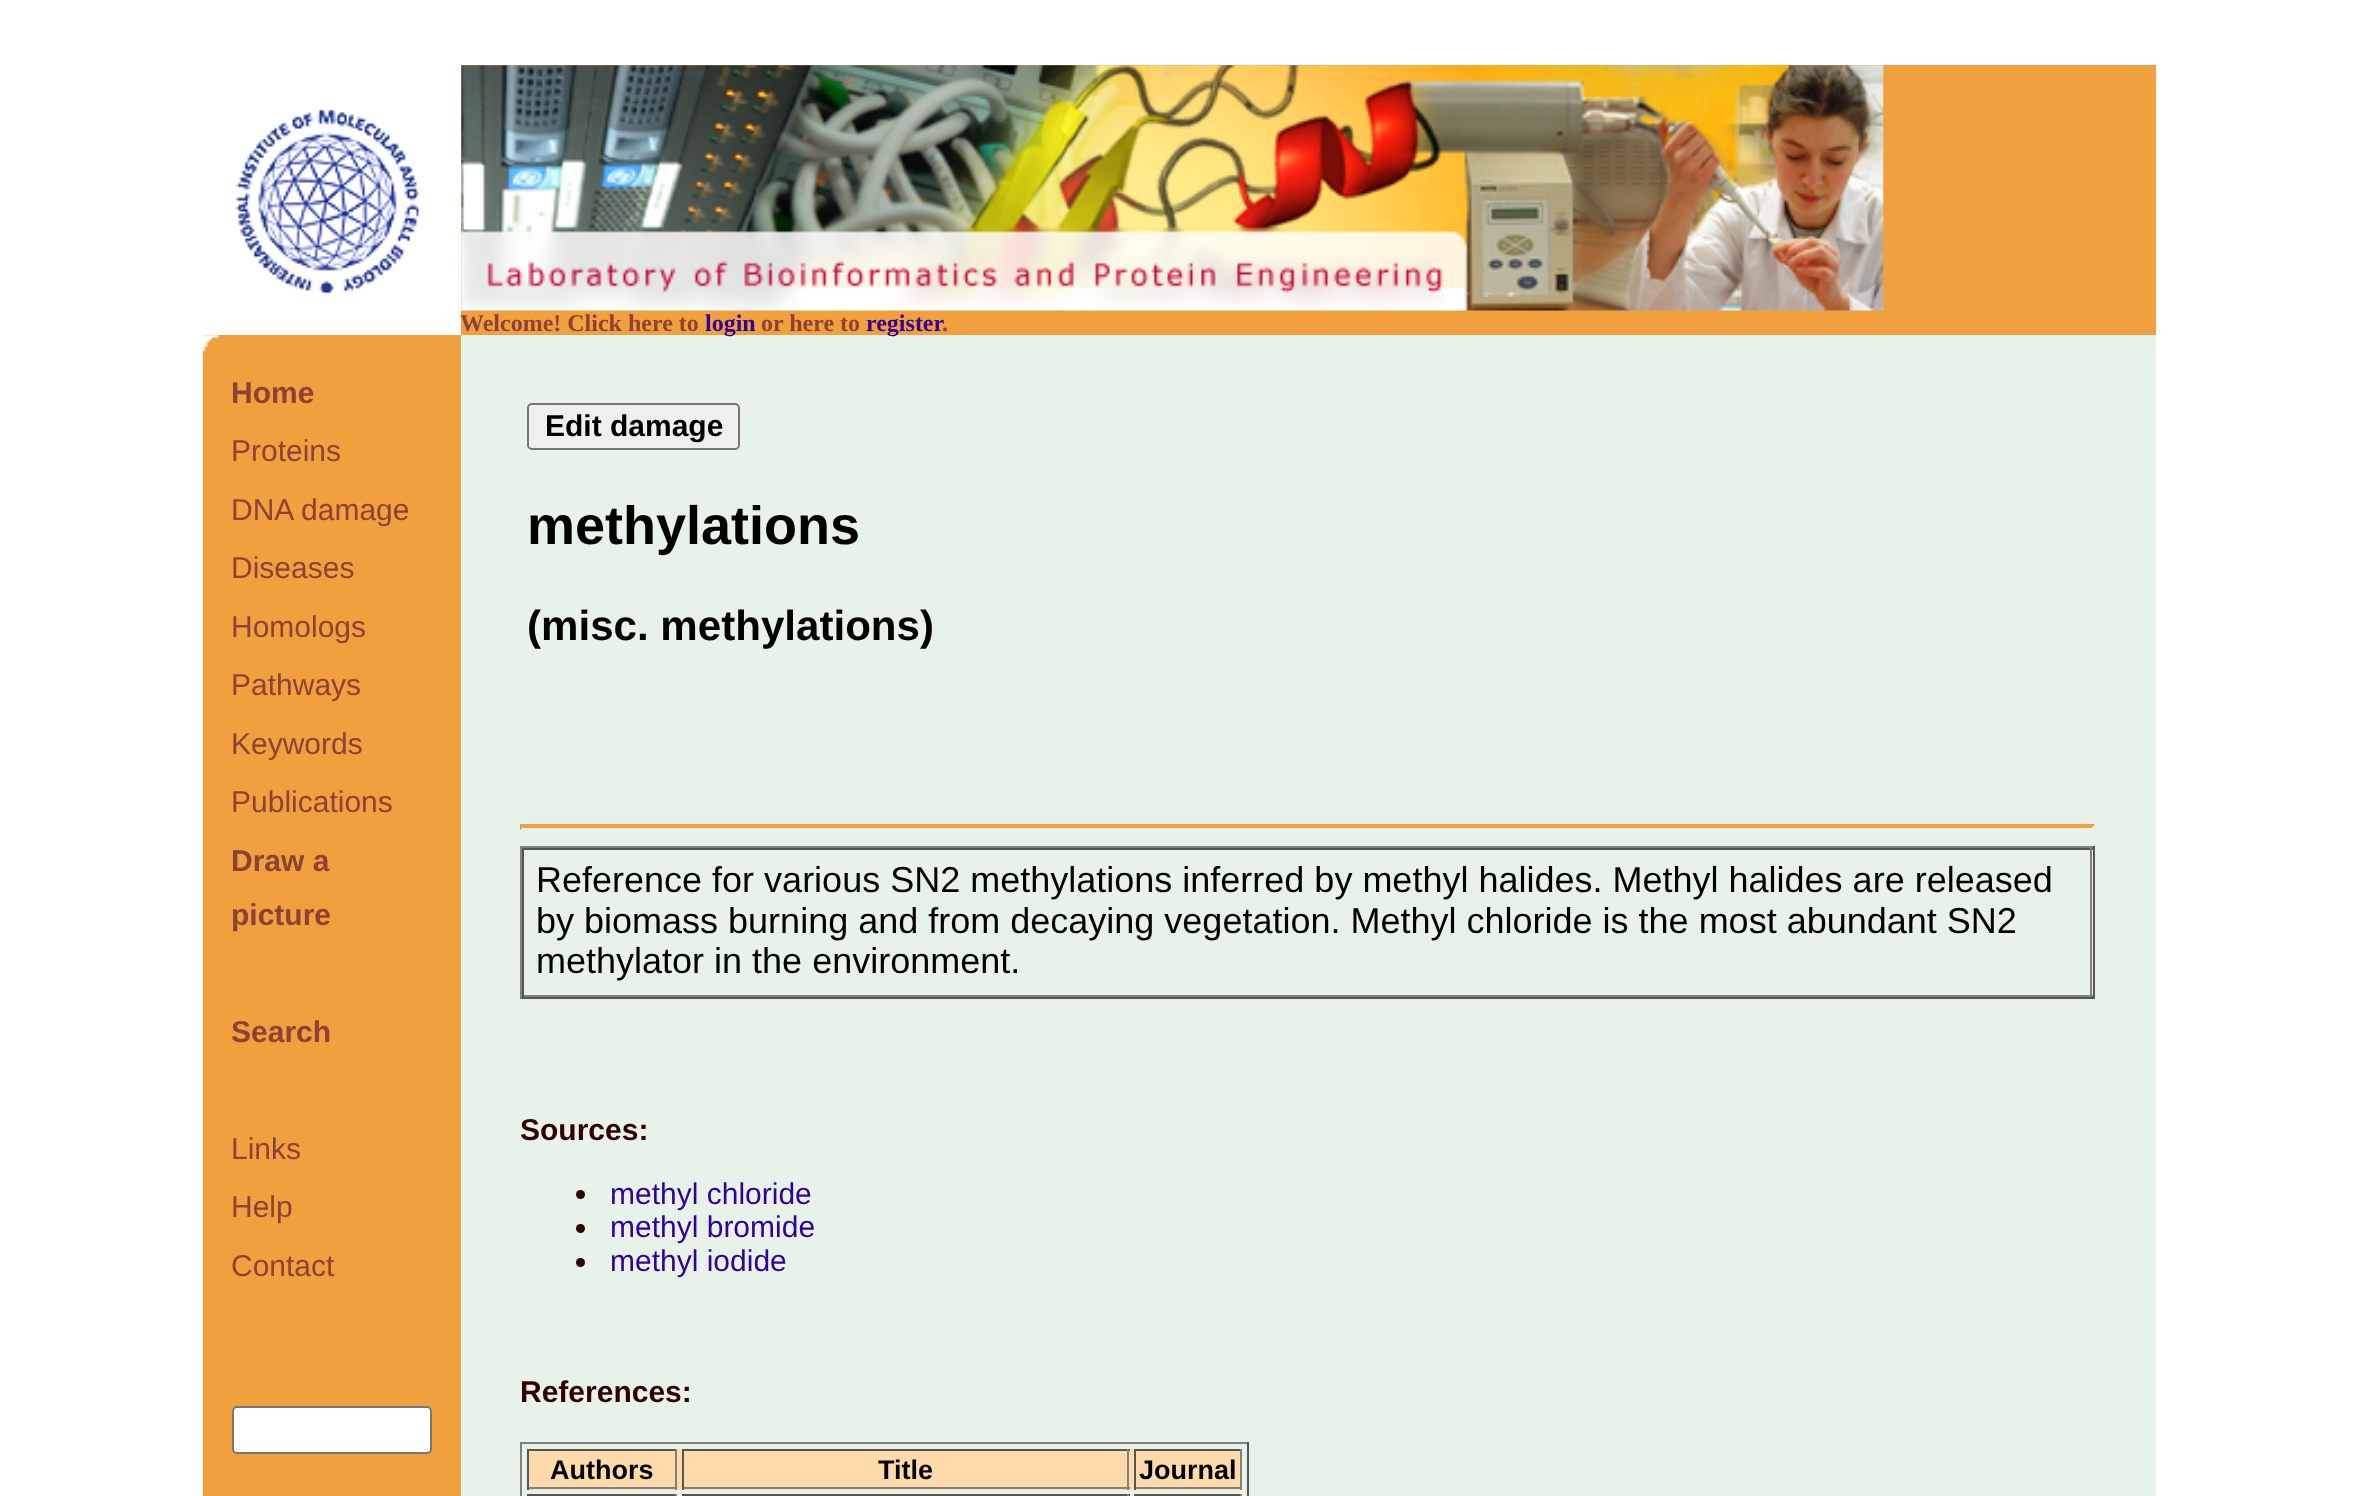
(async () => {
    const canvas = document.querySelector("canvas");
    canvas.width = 2356;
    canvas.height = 1496;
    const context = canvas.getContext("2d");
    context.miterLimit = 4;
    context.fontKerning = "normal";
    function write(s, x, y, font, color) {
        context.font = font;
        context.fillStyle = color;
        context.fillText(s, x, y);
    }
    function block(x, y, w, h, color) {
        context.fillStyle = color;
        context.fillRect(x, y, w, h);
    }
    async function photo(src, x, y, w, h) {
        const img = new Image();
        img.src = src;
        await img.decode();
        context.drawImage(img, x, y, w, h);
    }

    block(0, 0, 2356, 1496, "rgb(255, 255, 255)");
    await photo("media/1.png", 235, 109, 185, 185);
    block(461, 65, 1695, 270, "rgb(240, 160, 61)");
    await photo("media/2.png", 461, 65, 1423, 246);
    write("Welcome! Click here to", 460, 331, "bold 24px Liberation Serif", "rgb(144, 64, 53)");
    block(461, 335, 1695, 1161, "rgb(231, 243, 233)");
    write("login", 705, 331, "bold 24px Liberation Serif", "rgb(51, 0, 153)");
    write("or here to", 761, 331, "bold 24px Liberation Serif", "rgb(144, 64, 53)");
    write("register", 866, 331, "bold 24px Liberation Serif", "rgb(51, 0, 153)");
    write(".", 942, 331, "bold 24px Liberation Serif", "rgb(144, 64, 53)");
    block(203, 335, 258, 1161, "rgb(240, 160, 61)");
    await photo("media/3.png", 202, 335, 17, 19);
    write("Home", 231, 403, "bold 30px Liberation Sans", "rgb(144, 64, 53)");
    write("Proteins", 231, 461, "30px Liberation Sans", "rgb(144, 64, 53)");
    write("DNA damage", 231, 520, "30px Liberation Sans", "rgb(144, 64, 53)");
    write("Diseases", 231, 578, "30px Liberation Sans", "rgb(144, 64, 53)");
    write("Homologs", 231, 637, "30px Liberation Sans", "rgb(144, 64, 53)");
    write("Pathways", 231, 695, "30px Liberation Sans", "rgb(144, 64, 53)");
    write("Keywords", 231, 754, "30px Liberation Sans", "rgb(144, 64, 53)");
    write("Publications", 231, 812, "30px Liberation Sans", "rgb(144, 64, 53)");
    write("Draw a", 231, 871, "bold 30px Liberation Sans", "rgb(144, 64, 53)");
    write("picture", 231, 925, "bold 30px Liberation Sans", "rgb(144, 64, 53)");
    write("Search", 231, 1042, "bold 30px Liberation Sans", "rgb(144, 64, 53)");
    write("Links", 231, 1159, "30px Liberation Sans", "rgb(144, 64, 53)");
    write("Help", 231, 1217, "30px Liberation Sans", "rgb(144, 64, 53)");
    write("Contact", 231, 1276, "30px Liberation Sans", "rgb(144, 64, 53)");
    context.fillStyle = "rgb(255, 255, 255)";
    context.beginPath();
    context.roundRect(233, 1407, 198, 46, 4);
    context.fill();
    context.strokeStyle = "rgb(118, 118, 118)";
    context.lineWidth = 2;
    context.stroke();
    context.fillStyle = "rgb(239, 239, 239)";
    context.beginPath();
    context.roundRect(528, 404, 211, 45, 4);
    context.fill();
    context.stroke();
    write("Edit damage", 545, 436, "bold 30px Liberation Sans", "rgb(0, 0, 0)");
    write("methylations", 527, 544, "bold 54px Liberation Sans", "rgb(0, 0, 0)");
    write("(misc. methylations)", 527, 640, "bold 42.1px Liberation Sans", "rgb(0, 0, 0)");
    context.fillStyle = "rgb(240, 160, 61)";
    context.beginPath();
    context.moveTo(520, 824);
    context.lineTo(2095, 824);
    context.lineTo(2092, 828);
    context.lineTo(522, 828);
    context.closePath();
    context.fill();
    context.fillStyle = "rgb(238, 238, 238)";
    context.beginPath();
    context.moveTo(2095, 823.5);
    context.lineTo(2095, 830);
    context.lineTo(2092.5, 828);
    context.closePath();
    context.fill();
    block(520, 828, 1575, 2, "rgb(238, 238, 238)");
    context.fillStyle = "rgb(159, 159, 159)";
    context.beginPath();
    context.moveTo(520, 830);
    context.lineTo(520, 823.5);
    context.lineTo(522, 828);
    context.closePath();
    context.fill();
    block(520, 846, 1575, 2, "rgb(128, 128, 128)");
    block(2093, 846, 2, 153, "rgb(85, 85, 85)");
    block(520, 997, 1575, 2, "rgb(85, 85, 85)");
    block(520, 846, 2, 153, "rgb(128, 128, 128)");
    block(522, 848, 1571, 2, "rgb(85, 85, 85)");
    block(2090, 848, 2, 149, "rgb(128, 128, 128)");
    block(522, 995, 1571, 2, "rgb(128, 128, 128)");
    block(522, 848, 2, 149, "rgb(85, 85, 85)");
    write("Reference for various SN2 methylations inferred by methyl halides. Methyl halides are released", 536, 892, "36px Liberation Sans", "rgb(0, 0, 0)");
    write("by biomass burning and from decaying vegetation. Methyl chloride is the most abundant SN2", 536, 933, "36px Liberation Sans", "rgb(0, 0, 0)");
    write("methylator in the environment.", 536, 973, "36px Liberation Sans", "rgb(0, 0, 0)");
    write("Sources:", 520, 1140, "bold 30px Liberation Sans", "rgb(51, 0, 0)");
    context.beginPath();
    context.arc(580.5, 1194.5, 4.5, 0, Math.PI * 2);
    context.fill();
    write("methyl chloride", 610, 1204, "30px Liberation Sans", "rgb(51, 0, 153)");
    context.fillStyle = "rgb(51, 0, 0)";
    context.beginPath();
    context.arc(580.5, 1228.5, 4.5, 0, Math.PI * 2);
    context.fill();
    write("methyl bromide", 610, 1237, "30px Liberation Sans", "rgb(51, 0, 153)");
    context.fillStyle = "rgb(51, 0, 0)";
    context.beginPath();
    context.arc(580.5, 1262.5, 4.5, 0, Math.PI * 2);
    context.fill();
    write("methyl iodide", 610, 1271, "30px Liberation Sans", "rgb(51, 0, 153)");
    write("References:", 520, 1402, "bold 30px Liberation Sans", "rgb(51, 0, 0)");
    block(520, 1442, 729, 2, "rgb(128, 128, 128)");
    block(1247, 1442, 2, 54, "rgb(85, 85, 85)");
    block(520, 1442, 2, 54, "rgb(128, 128, 128)");
    block(529, 1449, 711, 41, "rgb(255, 219, 172)");
    block(527, 1449, 150, 2, "rgb(85, 85, 85)");
    block(675, 1449, 2, 41, "rgb(128, 128, 128)");
    block(527, 1487, 150, 2, "rgb(128, 128, 128)");
    block(527, 1449, 2, 41, "rgb(85, 85, 85)");
    write("Authors", 550, 1479, "bold 27px Liberation Sans", "rgb(0, 0, 0)");
    block(682, 1449, 448, 2, "rgb(85, 85, 85)");
    block(1127, 1449, 2, 41, "rgb(128, 128, 128)");
    block(682, 1487, 448, 2, "rgb(128, 128, 128)");
    block(682, 1449, 2, 41, "rgb(85, 85, 85)");
    write("Title", 878, 1479, "bold 27px Liberation Sans", "rgb(0, 0, 0)");
    block(1134, 1449, 108, 2, "rgb(85, 85, 85)");
    block(1240, 1449, 2, 41, "rgb(128, 128, 128)");
    block(1134, 1487, 108, 2, "rgb(128, 128, 128)");
    block(1134, 1449, 2, 41, "rgb(85, 85, 85)");
    write("Journal", 1139, 1479, "bold 27px Liberation Sans", "rgb(0, 0, 0)");
    block(527, 1494, 150, 2, "rgb(85, 85, 85)");
    block(675, 1494, 2, 2, "rgb(128, 128, 128)");
    block(682, 1494, 448, 2, "rgb(85, 85, 85)");
    block(1127, 1494, 2, 2, "rgb(128, 128, 128)");
    block(1134, 1494, 108, 2, "rgb(85, 85, 85)");
    block(1240, 1494, 2, 2, "rgb(128, 128, 128)");
})();
